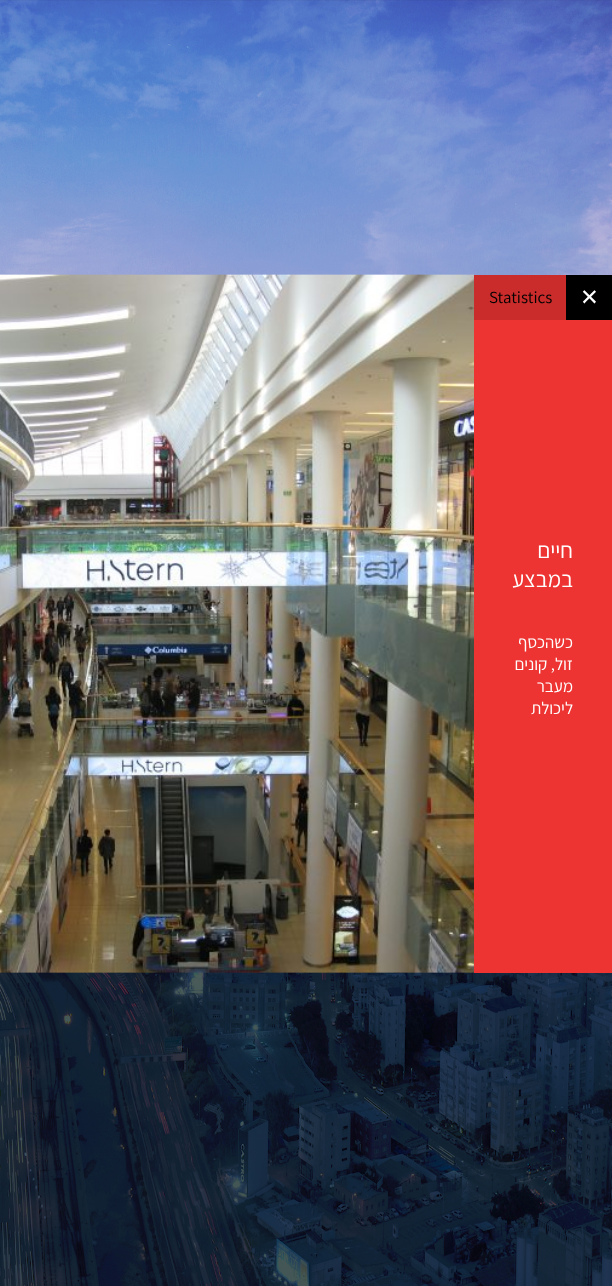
(async () => {
    const canvas = document.querySelector("canvas");
    canvas.width = 612;
    canvas.height = 1286;
    const context = canvas.getContext("2d");
    context.miterLimit = 4;
    context.fontKerning = "normal";
    function write(s, x, y, font, color) {
        context.font = font;
        context.fillStyle = color;
        context.fillText(s, x, y);
    }
    function block(x, y, w, h, color) {
        context.fillStyle = color;
        context.fillRect(x, y, w, h);
    }
    async function photo(src, x, y, w, h) {
        const img = new Image();
        img.src = src;
        await img.decode();
        context.drawImage(img, x, y, w, h);
    }

    block(0, 0, 612, 1286, "rgb(255, 255, 255)");
    await photo("media/1.png", 0, 0, 612, 1286);
    block(474, 320, 138, 653, "rgb(237, 52, 50)");
    block(474, 275, 92, 45, "rgb(201, 44, 43)");
    block(566, 275, 46, 45, "rgb(0, 0, 0)");
    write("✕", 580, 305, "22.5px DejaVu Sans", "rgb(255, 255, 255)");
    write("Statistics", 489, 303, "17px Assistant", "rgb(0, 0, 0)");
    context.direction = "rtl";
    write("חיים", 573, 558, "22.5px Assistant", "rgb(255, 255, 255)");
    write("במבצע", 573, 587, "22.5px Assistant", "rgb(255, 255, 255)");
    write("כשהכסף", 573, 648, "17px Assistant", "rgb(255, 255, 255)");
    write("זול, קונים", 573, 670, "17px Assistant", "rgb(255, 255, 255)");
    write("מעבר", 573, 692, "17px Assistant", "rgb(255, 255, 255)");
    write("ליכולת", 573, 714, "17px Assistant", "rgb(255, 255, 255)");
    await photo("media/2.png", 0, 274, 474, 699);
})();
